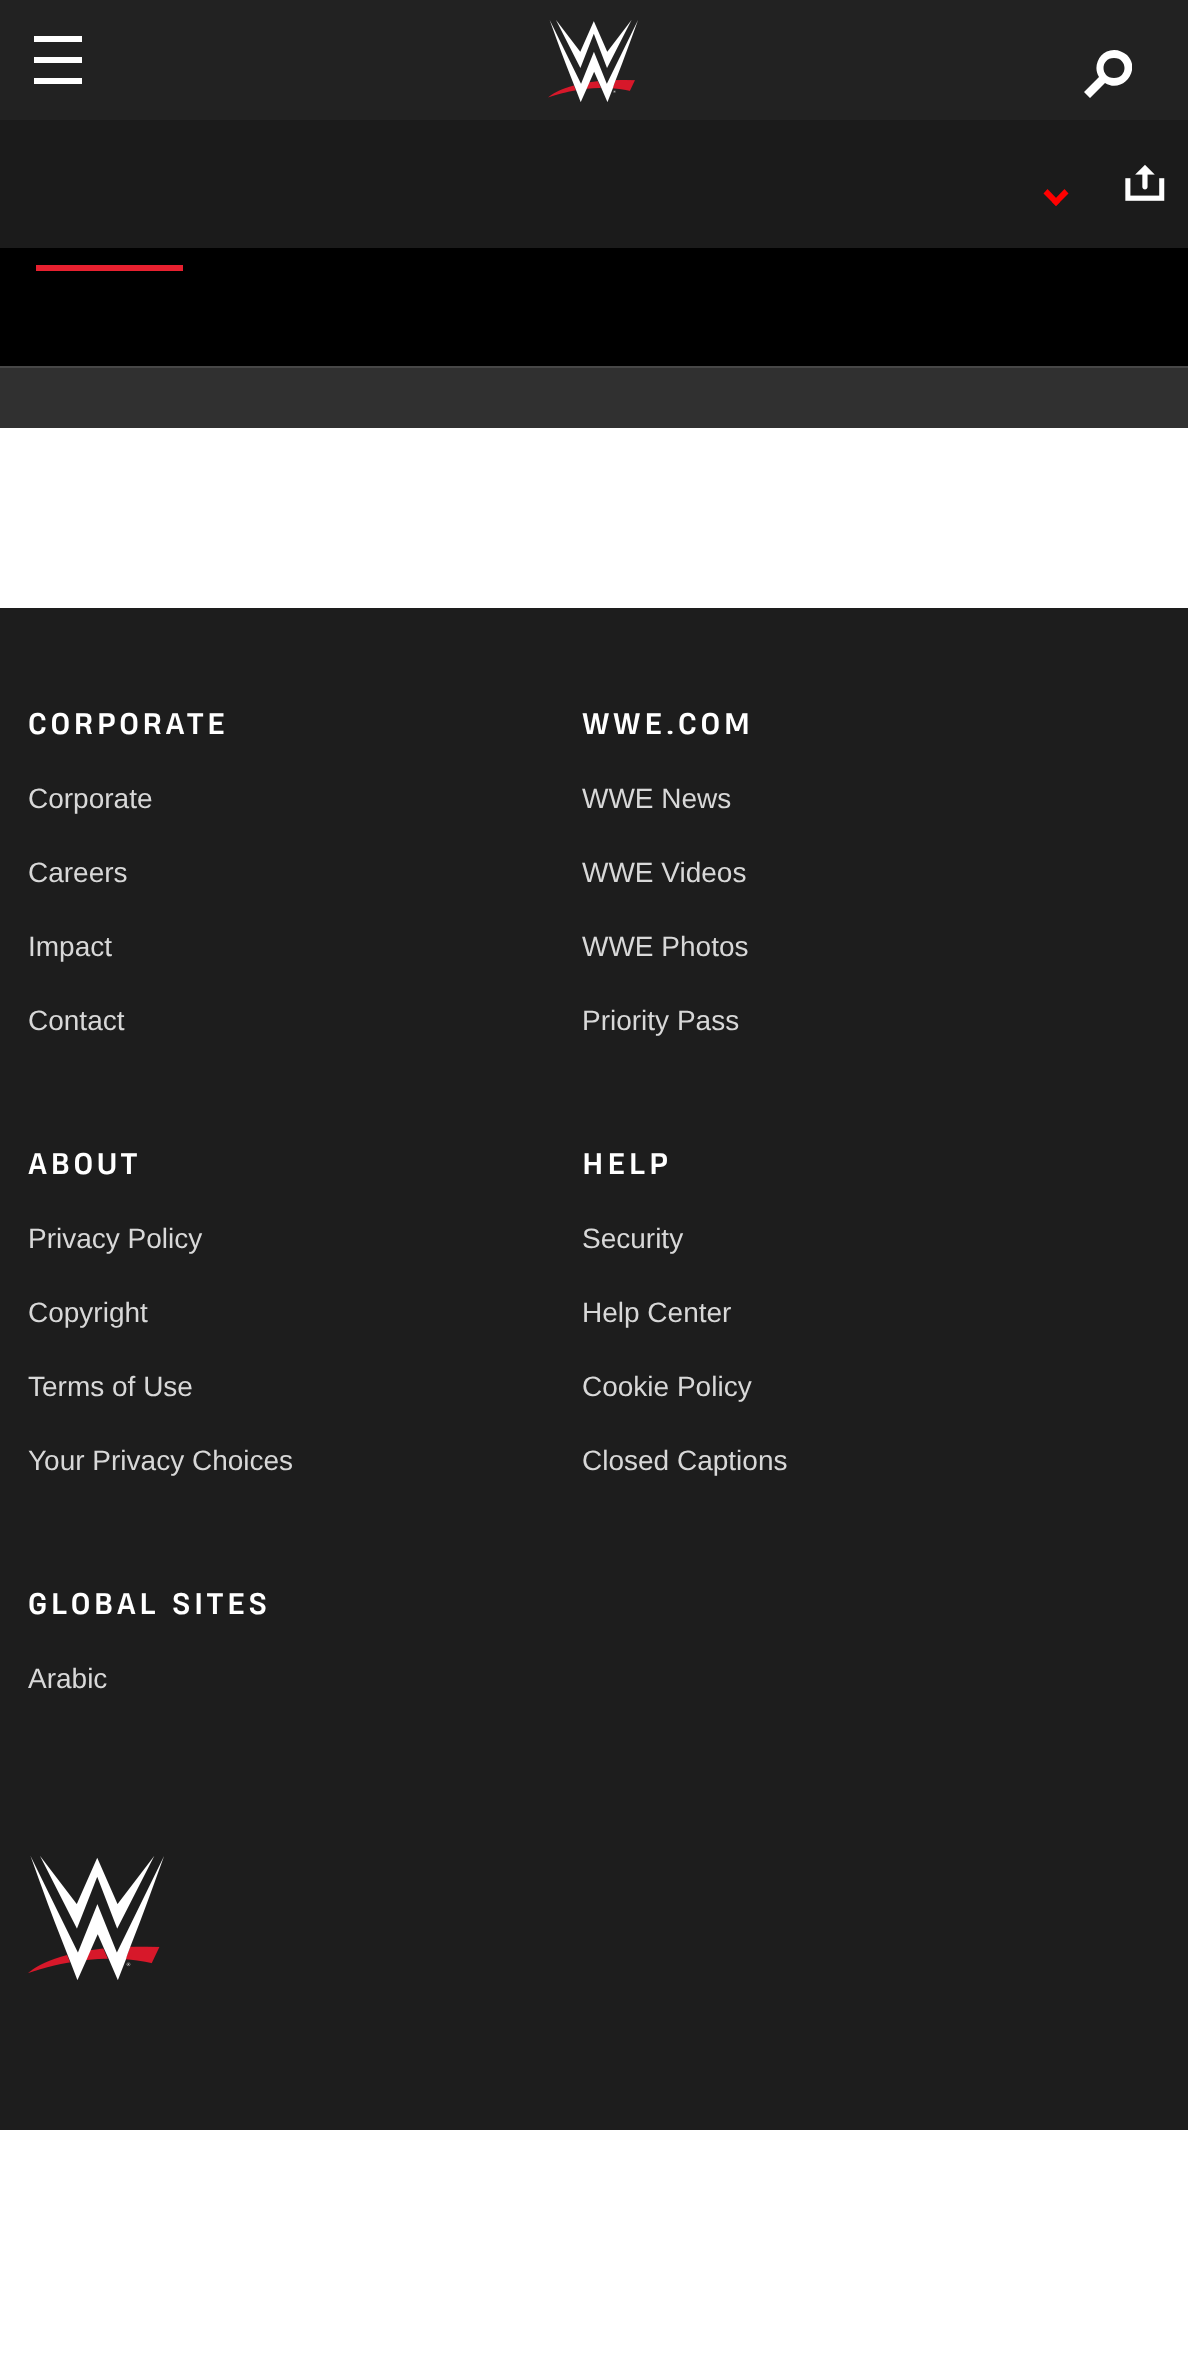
(async () => {
    const canvas = document.querySelector("canvas");
    canvas.width = 1188;
    canvas.height = 2353;
    const context = canvas.getContext("2d");
    context.miterLimit = 4;
    context.fontKerning = "normal";
    function write(s, x, y, font, color) {
        context.font = font;
        context.fillStyle = color;
        context.fillText(s, x, y);
    }
    function block(x, y, w, h, color) {
        context.fillStyle = color;
        context.fillRect(x, y, w, h);
    }
    async function photo(src, x, y, w, h) {
        const img = new Image();
        img.src = src;
        await img.decode();
        context.drawImage(img, x, y, w, h);
    }

    block(0, 0, 1188, 2353, "rgb(255, 255, 255)");
    block(0, 0, 1188, 120, "rgb(34, 34, 34)");
    context.fillStyle = "rgb(255, 255, 255)";
    context.beginPath();
    context.moveTo(36, 42);
    context.lineTo(34, 42);
    context.lineTo(34, 36);
    context.lineTo(82, 36);
    context.lineTo(82, 42);
    context.closePath();
    context.moveTo(36, 63);
    context.lineTo(34, 63);
    context.lineTo(34, 57);
    context.lineTo(82, 57);
    context.lineTo(82, 63);
    context.closePath();
    context.moveTo(36, 84);
    context.lineTo(34, 84);
    context.lineTo(34, 78);
    context.lineTo(82, 78);
    context.lineTo(82, 84);
    context.closePath();
    context.fill("evenodd");
    await photo("media/1.png", 548, 20, 90, 82);
    context.save();
    context.beginPath();
    context.rect(1084, 50, 48, 48);
    context.clip();
    context.beginPath();
    context.moveTo(1114, 50);
    context.bezierCurveTo(1119, 50, 1123, 52, 1127, 55);
    context.bezierCurveTo(1142, 70, 1122, 94, 1105, 83);
    context.lineTo(1090, 98);
    context.lineTo(1084, 92);
    context.lineTo(1099, 77);
    context.bezierCurveTo(1092, 66, 1100, 50, 1114, 50);
    context.closePath();
    context.moveTo(1114, 58);
    context.bezierCurveTo(1100, 58, 1100, 78, 1114, 78);
    context.bezierCurveTo(1128, 78, 1128, 58, 1114, 58);
    context.closePath();
    context.fill("evenodd");
    context.restore();
    block(0, 368, 1188, 60, "rgb(48, 48, 48)");
    block(0, 120, 1188, 128, "rgb(27, 27, 27)");
    context.fillStyle = "rgb(255, 0, 0)";
    context.beginPath();
    context.moveTo(1064.5, 189);
    context.lineTo(1068.5, 193.5);
    context.lineTo(1056, 206);
    context.lineTo(1052, 202);
    context.closePath();
    context.fill();
    context.beginPath();
    context.moveTo(1047.5, 189);
    context.lineTo(1060, 202);
    context.lineTo(1056, 206);
    context.lineTo(1043.5, 193.5);
    context.closePath();
    context.fill();
    await photo("media/2.png", 1125, 164, 40, 37);
    block(0, 248, 1188, 118, "rgb(0, 0, 0)");
    block(0, 366, 1188, 2, "rgb(71, 71, 71)");
    block(36, 265, 147, 6, "rgb(231, 32, 47)");
    block(0, 608, 1188, 1522, "rgb(29, 29, 29)");
    context.letterSpacing = "3.5px";
    write("CORPORATE", 28, 734, "bold 28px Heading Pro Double", "rgb(255, 255, 255)");
    context.letterSpacing = "0px";
    write("Corporate", 28, 808, "28px Liberation Sans", "rgb(216, 216, 216)");
    write("Careers", 28, 882, "28px Liberation Sans", "rgb(216, 216, 216)");
    write("Impact", 28, 956, "28px Liberation Sans", "rgb(216, 216, 216)");
    write("Contact", 28, 1030, "28px Liberation Sans", "rgb(216, 216, 216)");
    context.letterSpacing = "3.5px";
    write("WWE.COM", 582, 734, "bold 28px Heading Pro Double", "rgb(255, 255, 255)");
    context.letterSpacing = "0px";
    write("WWE News", 582, 808, "28px Liberation Sans", "rgb(216, 216, 216)");
    write("WWE Videos", 582, 882, "28px Liberation Sans", "rgb(216, 216, 216)");
    write("WWE Photos", 582, 956, "28px Liberation Sans", "rgb(216, 216, 216)");
    write("Priority Pass", 582, 1030, "28px Liberation Sans", "rgb(216, 216, 216)");
    context.letterSpacing = "3.5px";
    write("ABOUT", 28, 1174, "bold 28px Heading Pro Double", "rgb(255, 255, 255)");
    context.letterSpacing = "0px";
    write("Privacy Policy", 28, 1248, "28px Liberation Sans", "rgb(216, 216, 216)");
    write("Copyright", 28, 1322, "28px Liberation Sans", "rgb(216, 216, 216)");
    write("Terms of Use", 28, 1396, "28px Liberation Sans", "rgb(216, 216, 216)");
    write("Your Privacy Choices", 28, 1470, "28px Liberation Sans", "rgb(216, 216, 216)");
    context.letterSpacing = "3.5px";
    write("HELP", 582, 1174, "bold 28px Heading Pro Double", "rgb(255, 255, 255)");
    context.letterSpacing = "0px";
    write("Security", 582, 1248, "28px Liberation Sans", "rgb(216, 216, 216)");
    write("Help Center", 582, 1322, "28px Liberation Sans", "rgb(216, 216, 216)");
    write("Cookie Policy", 582, 1396, "28px Liberation Sans", "rgb(216, 216, 216)");
    write("Closed Captions", 582, 1470, "28px Liberation Sans", "rgb(216, 216, 216)");
    context.letterSpacing = "3.5px";
    write("GLOBAL SITES", 28, 1614, "bold 28px Heading Pro Double", "rgb(255, 255, 255)");
    context.letterSpacing = "0px";
    write("Arabic", 28, 1688, "28px Liberation Sans", "rgb(216, 216, 216)");
    await photo("media/3.png", 28, 1856, 136, 124);
})();
